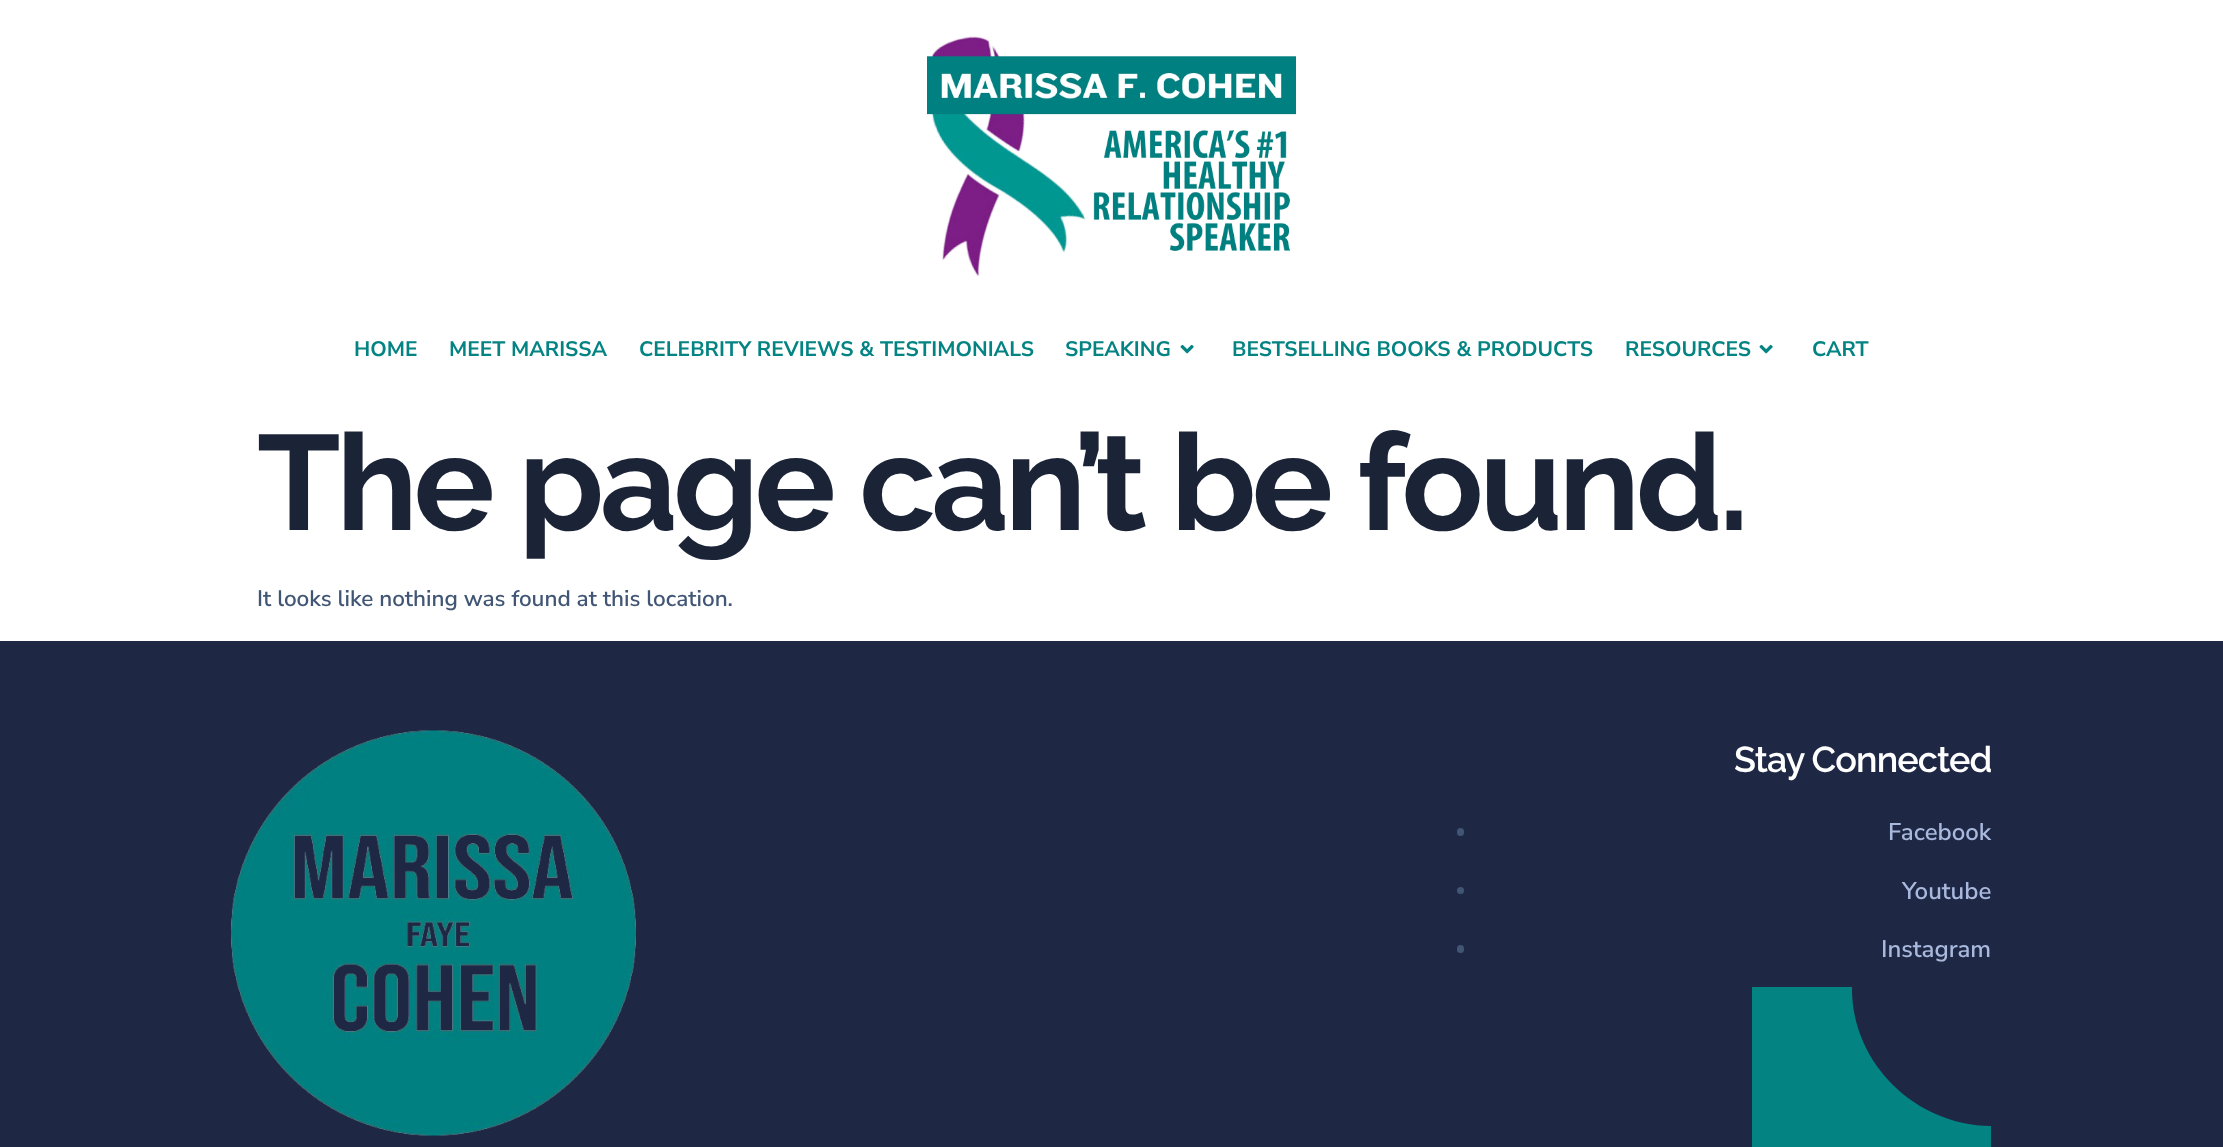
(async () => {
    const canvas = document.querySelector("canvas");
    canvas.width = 2223;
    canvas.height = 1147;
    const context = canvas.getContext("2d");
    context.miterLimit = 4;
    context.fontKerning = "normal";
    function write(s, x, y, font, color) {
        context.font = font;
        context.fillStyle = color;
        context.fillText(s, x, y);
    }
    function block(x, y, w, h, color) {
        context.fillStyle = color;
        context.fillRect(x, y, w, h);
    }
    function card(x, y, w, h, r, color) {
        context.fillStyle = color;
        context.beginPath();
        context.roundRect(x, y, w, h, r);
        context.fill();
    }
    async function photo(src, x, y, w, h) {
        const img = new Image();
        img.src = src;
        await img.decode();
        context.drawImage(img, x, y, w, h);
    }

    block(0, 0, 2223, 1147, "rgb(255, 255, 255)");
    await photo("media/1.png", 927, 36, 369, 241);
    write("HOME", 354, 356, "bold 21px Nunito Sans", "rgb(4, 131, 131)");
    write("MEET MARISSA", 449, 356, "bold 21px Nunito Sans", "rgb(4, 131, 131)");
    write("CELEBRITY REVIEWS & TESTIMONIALS", 639, 356, "bold 21px Nunito Sans", "rgb(4, 131, 131)");
    write("SPEAKING", 1065, 356, "bold 21px Nunito Sans", "rgb(4, 131, 131)");
    await photo("media/2.png", 1180, 344, 14, 10);
    write("BESTSELLING BOOKS & PRODUCTS", 1232, 356, "bold 21px Nunito Sans", "rgb(4, 131, 131)");
    write("RESOURCES", 1625, 356, "bold 21px Nunito Sans", "rgb(4, 131, 131)");
    await photo("media/2.png", 1759, 344, 14, 10);
    write("CART", 1812, 356, "bold 21px Nunito Sans", "rgb(4, 131, 131)");
    context.letterSpacing = "-4.2px";
    write("The page can’t be found.", 257, 530, "bold 135px Raleway", "rgb(27, 35, 54)");
    context.letterSpacing = "0px";
    write("It looks like nothing was found at this location.", 257, 606, "600 22.5px Nunito Sans", "rgb(65, 86, 116)");
    block(0, 641, 2223, 506, "rgb(30, 40, 69)");
    await photo("media/3.png", 231, 730, 405, 406);
    context.letterSpacing = "-0.9px";
    write("Stay Connected", 1734, 772, "600 36px Raleway", "rgb(255, 255, 255)");
    card(1457, 828, 7, 8, 3.5, "rgb(65, 86, 116)");
    context.letterSpacing = "0px";
    write("Facebook", 1888, 840, "600 24px Nunito Sans", "rgb(169, 184, 221)");
    context.fillStyle = "rgb(65, 86, 116)";
    context.beginPath();
    context.arc(1460.5, 890.5, 3.5, 0, Math.PI * 2);
    context.fill();
    write("Youtube", 1902, 899, "600 24px Nunito Sans", "rgb(169, 184, 221)");
    card(1457, 945, 7, 8, 3.5, "rgb(65, 86, 116)");
    write("Instagram", 1881, 957, "600 24px Nunito Sans", "rgb(169, 184, 221)");
    context.save();
    context.beginPath();
    context.rect(1482, 987, 509, 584);
    context.clip();
    context.fillStyle = "rgb(4, 131, 131)";
    context.beginPath();
    context.moveTo(1992, 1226);
    context.bezierCurveTo(1942, 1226, 1893, 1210, 1852, 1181);
    context.lineTo(1852, 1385);
    context.bezierCurveTo(1852, 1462, 1804, 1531, 1732, 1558);
    context.bezierCurveTo(1660, 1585, 1578, 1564, 1528, 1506);
    context.bezierCurveTo(1477, 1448, 1468, 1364, 1504, 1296);
    context.bezierCurveTo(1541, 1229, 1616, 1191, 1693, 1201);
    context.lineTo(1693, 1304);
    context.bezierCurveTo(1657, 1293, 1619, 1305, 1598, 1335);
    context.bezierCurveTo(1577, 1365, 1577, 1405, 1599, 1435);
    context.bezierCurveTo(1620, 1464, 1659, 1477, 1693, 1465);
    context.bezierCurveTo(1728, 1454, 1752, 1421, 1752, 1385);
    context.lineTo(1752, 987);
    context.lineTo(1852, 987);
    context.bezierCurveTo(1851, 1063, 1916, 1126, 1992, 1126);
    context.closePath();
    context.fill();
    context.restore();
})();
